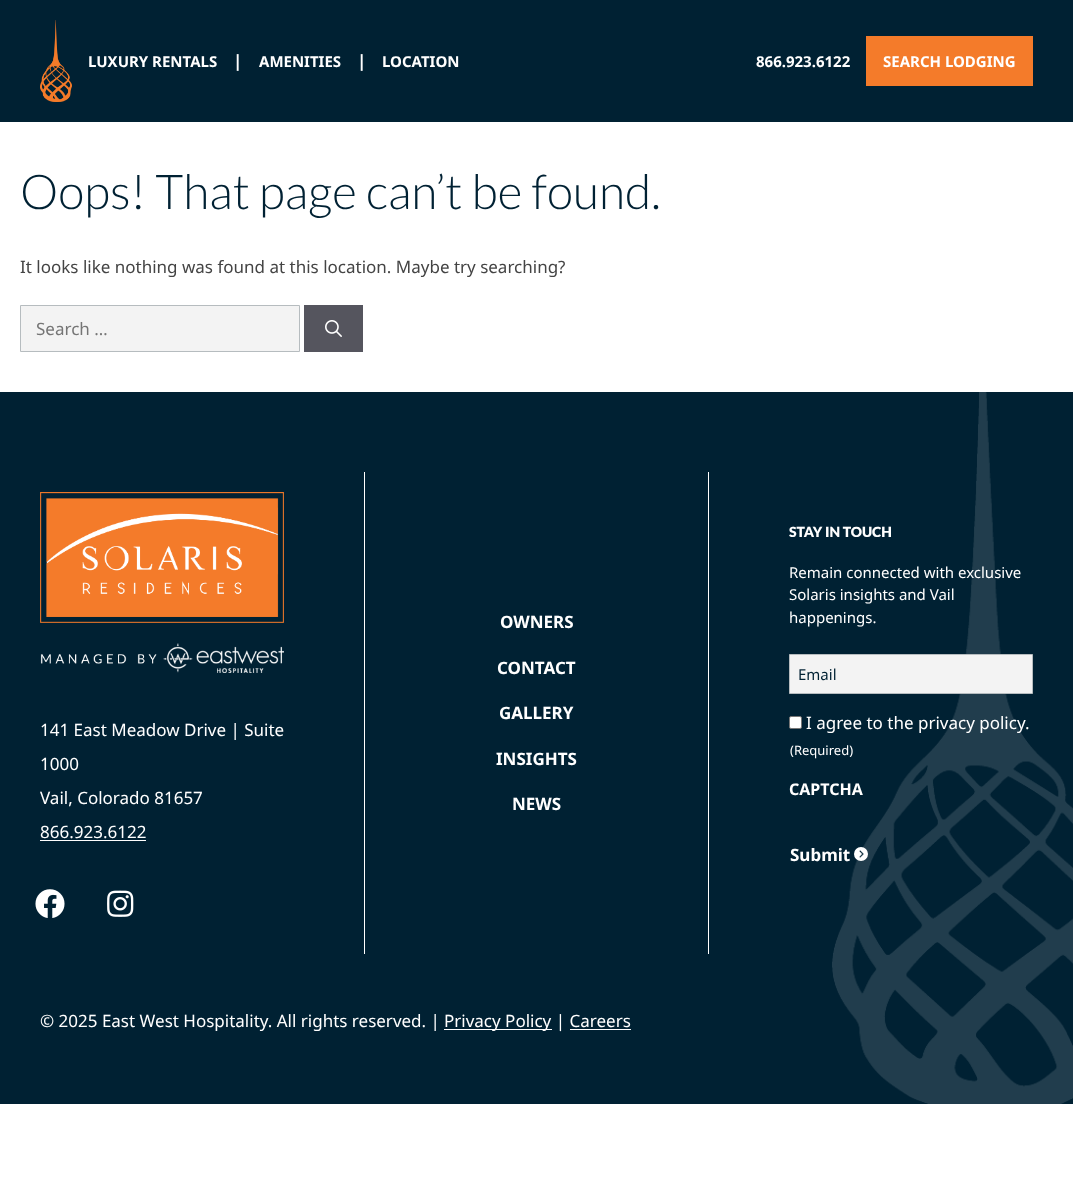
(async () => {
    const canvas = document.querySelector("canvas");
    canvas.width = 1073;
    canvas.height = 1195;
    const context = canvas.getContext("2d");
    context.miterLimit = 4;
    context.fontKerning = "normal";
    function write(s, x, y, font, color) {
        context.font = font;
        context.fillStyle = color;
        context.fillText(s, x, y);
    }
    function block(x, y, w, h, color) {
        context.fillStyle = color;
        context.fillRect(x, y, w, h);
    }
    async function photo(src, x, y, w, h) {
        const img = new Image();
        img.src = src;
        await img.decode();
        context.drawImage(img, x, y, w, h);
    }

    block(0, 0, 1073, 1195, "rgb(255, 255, 255)");
    block(0, 0, 1073, 122, "rgb(0, 33, 51)");
    await photo("media/1.png", 40, 20, 32, 82);
    write("LUXURY RENTALS", 88, 67, "bold 15px Noto Sans", "rgb(255, 255, 255)");
    write("|", 233, 67, "bold 17px Noto Sans", "rgb(255, 255, 255)");
    write("AMENITIES", 259, 67, "bold 15px Noto Sans", "rgb(255, 255, 255)");
    write("|", 357, 67, "bold 17px Noto Sans", "rgb(255, 255, 255)");
    write("LOCATION", 382, 67, "bold 15px Noto Sans", "rgb(255, 255, 255)");
    write("866.923.6122", 756, 67, "bold 15px Noto Sans", "rgb(255, 255, 255)");
    block(866, 36, 167, 50, "rgb(244, 123, 42)");
    write("SEARCH LODGING", 883, 67, "bold 15px Noto Sans", "rgb(255, 255, 255)");
    write("Oops! That page can’t be found.", 20, 209, "300 48px Lato", "rgb(0, 33, 51)");
    write("It looks like nothing was found at this location. Maybe try searching?", 20, 273, "17px Noto Sans", "rgb(68, 68, 68)");
    context.fillStyle = "rgb(243, 243, 243)";
    context.beginPath();
    context.rect(20.5, 305.5, 279, 46);
    context.fill();
    context.strokeStyle = "rgb(182, 188, 191)";
    context.stroke();
    write("Search …", 36, 335, "17px Noto Sans", "rgb(117, 117, 117)");
    block(304, 305, 59, 47, "rgb(85, 85, 94)");
    await photo("media/2.png", 325, 320, 17, 17);
    block(0, 392, 1073, 712, "rgb(0, 33, 51)");
    await photo("media/3.png", 832, 392, 241, 712);
    await photo("media/4.png", 40, 492, 244, 131);
    await photo("media/5.png", 40, 643, 244, 30);
    write("141 East Meadow Drive | Suite", 40, 736, "17px Noto Sans", "rgb(255, 255, 255)");
    write("1000", 40, 770, "17px Noto Sans", "rgb(255, 255, 255)");
    write("Vail, Colorado 81657", 40, 804, "17px Noto Sans", "rgb(255, 255, 255)");
    write("866.923.6122", 40, 838, "17px Noto Sans", "rgb(255, 255, 255)");
    block(40, 840, 106, 1, "rgb(255, 255, 255)");
    await photo("media/6.png", 35, 889, 30, 29);
    await photo("media/7.png", 107, 890, 27, 27);
    block(708, 472, 1, 482, "rgb(255, 255, 255)");
    block(364, 472, 1, 482, "rgb(255, 255, 255)");
    write("OWNERS", 500, 628, "bold 17px Noto Sans", "rgb(255, 255, 255)");
    write("CONTACT", 497, 674, "bold 17px Noto Sans", "rgb(255, 255, 255)");
    write("GALLERY", 499, 719, "bold 17px Noto Sans", "rgb(255, 255, 255)");
    write("INSIGHTS", 496, 765, "bold 17px Noto Sans", "rgb(255, 255, 255)");
    write("NEWS", 512, 810, "bold 17px Noto Sans", "rgb(255, 255, 255)");
    write("STAY IN TOUCH", 789, 537, "900 14px Lato", "rgb(255, 255, 255)");
    write("Remain connected with exclusive", 789, 578, "15px Noto Sans", "rgb(255, 255, 255)");
    write("Solaris insights and Vail", 789, 600, "15px Noto Sans", "rgb(255, 255, 255)");
    write("happenings.", 789, 623, "15px Noto Sans", "rgb(255, 255, 255)");
    context.fillStyle = "rgb(243, 243, 243)";
    context.beginPath();
    context.rect(789.5, 654.5, 243, 39);
    context.fill();
    context.stroke();
    write("Email", 798, 680, "15px Noto Sans", "rgb(0, 33, 51)");
    context.fillStyle = "rgb(255, 255, 255)";
    context.beginPath();
    context.roundRect(789.5, 716.5, 12, 12, 1.5);
    context.fill();
    context.strokeStyle = "rgb(118, 118, 118)";
    context.stroke();
    write("I agree to the privacy policy.", 806, 729, "17px Noto Sans", "rgb(255, 255, 255)");
    write("(Required)", 790, 755, "13px Noto Sans", "rgb(255, 255, 255)");
    write("CAPTCHA", 789, 795, "bold 16px Noto Sans", "rgb(255, 255, 255)");
    write("Submit", 790, 861, "bold 17px Noto Sans", "rgb(255, 255, 255)");
    await photo("media/8.png", 854, 847, 14, 14);
    write("© 2025 East West Hospitality. All rights reserved. |", 40, 1027, "17px Noto Sans", "rgb(255, 255, 255)");
    block(444, 1029, 108, 1, "rgb(255, 255, 255)");
    write("Privacy Policy | Careers", 444, 1027, "17px Noto Sans", "rgb(255, 255, 255)");
    block(570, 1029, 61, 1, "rgb(255, 255, 255)");
})();
